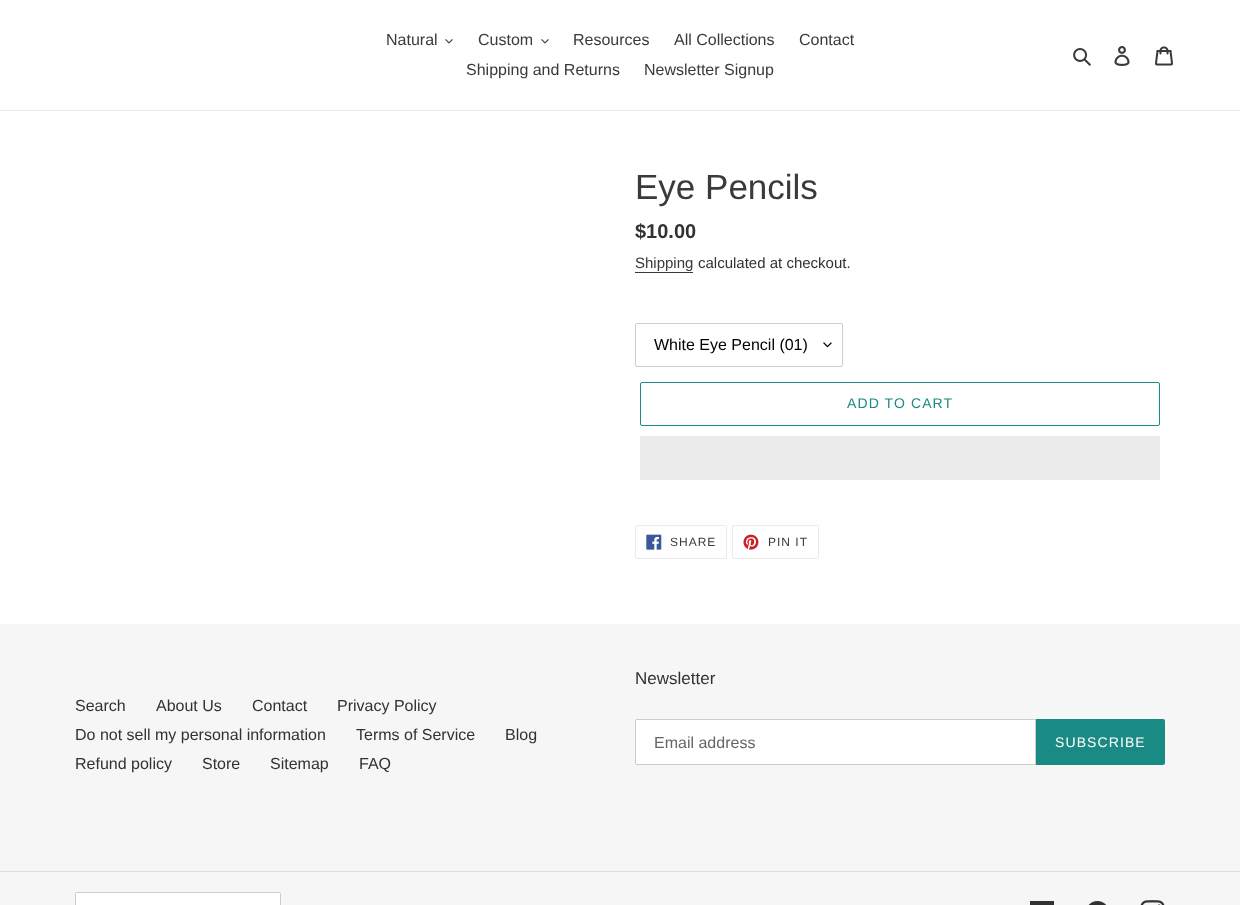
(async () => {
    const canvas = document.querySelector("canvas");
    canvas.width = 1240;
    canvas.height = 905;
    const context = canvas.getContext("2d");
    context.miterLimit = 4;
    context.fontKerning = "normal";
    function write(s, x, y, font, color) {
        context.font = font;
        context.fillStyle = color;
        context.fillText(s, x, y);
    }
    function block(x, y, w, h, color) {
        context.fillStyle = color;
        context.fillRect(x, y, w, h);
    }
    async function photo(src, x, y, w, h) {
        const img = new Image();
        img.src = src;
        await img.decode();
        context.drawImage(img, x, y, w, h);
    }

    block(0, 0, 1240, 905, "rgb(255, 255, 255)");
    block(0, 110, 1240, 1, "rgb(235, 235, 235)");
    write("Natural", 386, 45, "16px Arimo", "rgb(58, 58, 58)");
    await photo("media/1.png", 445, 39, 8, 5);
    write("Custom", 478, 45, "16px Arimo", "rgb(58, 58, 58)");
    await photo("media/1.png", 541, 39, 8, 5);
    write("Resources", 573, 45, "16px Arimo", "rgb(58, 58, 58)");
    write("All Collections", 674, 45, "16px Arimo", "rgb(58, 58, 58)");
    write("Contact", 799, 45, "16px Arimo", "rgb(58, 58, 58)");
    write("Shipping and Returns", 466, 75, "16px Arimo", "rgb(58, 58, 58)");
    write("Newsletter Signup", 644, 75, "16px Arimo", "rgb(58, 58, 58)");
    await photo("media/2.png", 1073, 48, 18, 18);
    await photo("media/3.png", 1114, 46, 16, 20);
    await photo("media/4.png", 1155, 46, 18, 20);
    write("Eye Pencils", 635, 199, "35px Arimo", "rgb(58, 58, 58)");
    write("$10.00", 635, 238, "bold 20px Arimo", "rgb(51, 50, 50)");
    write("Shipping", 635, 268, "15px Arimo", "rgb(58, 58, 58)");
    block(635, 272, 58, 1, "rgb(58, 58, 58)");
    write("calculated at checkout.", 698, 268, "15px Arimo", "rgb(51, 50, 50)");
    await photo("media/5.png", 823, 342, 9, 6);
    context.beginPath();
    context.roundRect(635.5, 323.5, 207, 43, 1.5);
    context.strokeStyle = "rgb(204, 204, 204)";
    context.stroke();
    write("White Eye Pencil (01)", 654, 350, "16px Arimo", "rgb(0, 0, 0)");
    context.beginPath();
    context.roundRect(640.5, 382.5, 519, 43, 1.5);
    context.strokeStyle = "rgb(26, 138, 132)";
    context.stroke();
    context.letterSpacing = "1.1px";
    write("ADD TO CART", 847, 408, "14px Arimo", "rgb(26, 138, 132)");
    block(640, 436, 520, 44, "rgb(235, 235, 235)");
    context.beginPath();
    context.roundRect(635.5, 525.5, 91, 33, 1.5);
    context.strokeStyle = "rgb(235, 235, 235)";
    context.stroke();
    await photo("media/6.png", 646, 534, 16, 16);
    context.letterSpacing = "1px";
    write("SHARE", 670, 546, "12px Arimo", "rgb(58, 58, 58)");
    context.beginPath();
    context.roundRect(732.5, 525.5, 86, 33, 1.5);
    context.stroke();
    await photo("media/7.png", 743, 534, 16, 16);
    write("PIN IT", 768, 546, "12px Arimo", "rgb(58, 58, 58)");
    block(0, 624, 1240, 281, "rgb(246, 246, 246)");
    context.letterSpacing = "0px";
    write("Search", 75, 711, "16px Arimo", "rgb(51, 50, 50)");
    write("About Us", 156, 711, "16px Arimo", "rgb(51, 50, 50)");
    write("Contact", 252, 711, "16px Arimo", "rgb(51, 50, 50)");
    write("Privacy Policy", 337, 711, "16px Arimo", "rgb(51, 50, 50)");
    write("Do not sell my personal information", 75, 740, "16px Arimo", "rgb(51, 50, 50)");
    write("Terms of Service", 356, 740, "16px Arimo", "rgb(51, 50, 50)");
    write("Blog", 505, 740, "16px Arimo", "rgb(51, 50, 50)");
    write("Refund policy", 75, 769, "16px Arimo", "rgb(51, 50, 50)");
    write("Store", 202, 769, "16px Arimo", "rgb(51, 50, 50)");
    write("Sitemap", 270, 769, "16px Arimo", "rgb(51, 50, 50)");
    write("FAQ", 359, 769, "16px Arimo", "rgb(51, 50, 50)");
    write("Newsletter", 635, 684, "17px Arimo", "rgb(51, 50, 50)");
    context.fillStyle = "rgb(255, 255, 255)";
    context.beginPath();
    context.roundRect(635.5, 719.5, 400, 45, [1.5, 0, 0, 1.5]);
    context.fill();
    context.strokeStyle = "rgb(204, 204, 204)";
    context.stroke();
    write("Email address", 654, 748, "16px Arimo", "rgb(102, 102, 102)");
    context.fillStyle = "rgb(26, 138, 132)";
    context.beginPath();
    context.roundRect(1036, 719, 129, 46, [0, 2, 2, 0]);
    context.fill();
    context.letterSpacing = "1.1px";
    write("SUBSCRIBE", 1055, 747, "14px Arimo", "rgb(255, 255, 255)");
    block(0, 871, 1240, 1, "rgb(221, 221, 221)");
    context.fillStyle = "rgb(255, 255, 255)";
    context.beginPath();
    context.roundRect(75.5, 892.5, 205, 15, 1.5);
    context.fill();
    context.stroke();
    block(1030, 901, 24, 4, "rgb(51, 50, 50)");
    await photo("media/8.png", 1088, 901, 18, 4);
    await photo("media/9.png", 1140, 900, 25, 5);
})();
